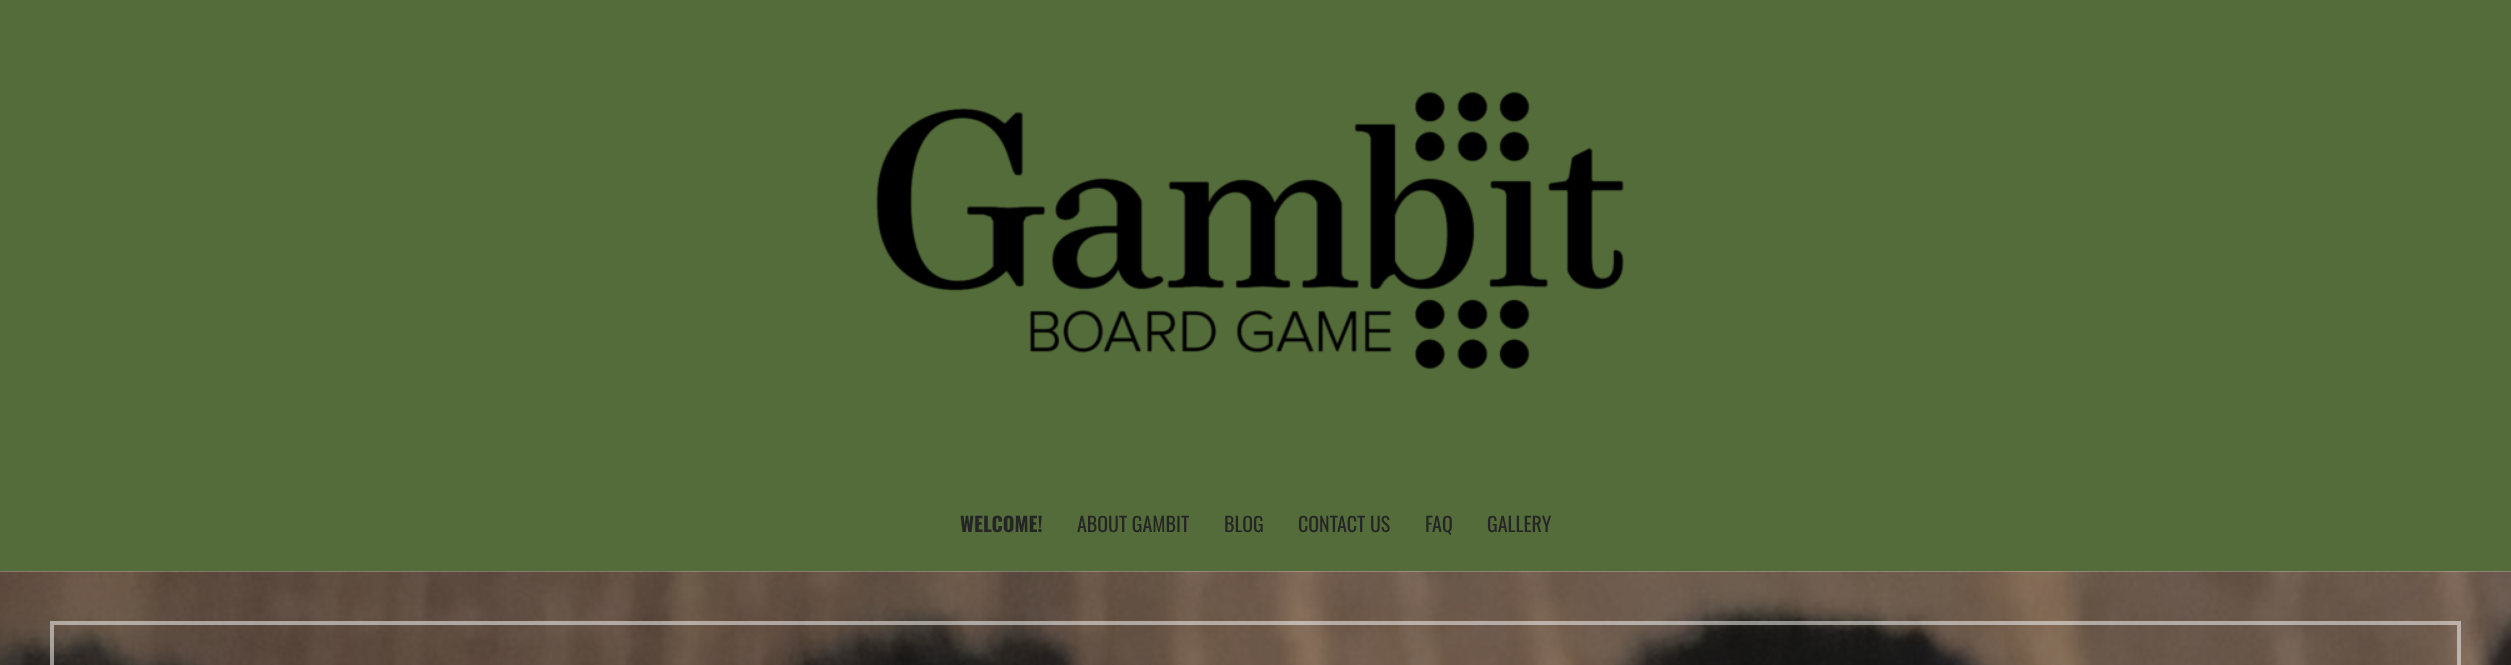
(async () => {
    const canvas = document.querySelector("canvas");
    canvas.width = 2511;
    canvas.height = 665;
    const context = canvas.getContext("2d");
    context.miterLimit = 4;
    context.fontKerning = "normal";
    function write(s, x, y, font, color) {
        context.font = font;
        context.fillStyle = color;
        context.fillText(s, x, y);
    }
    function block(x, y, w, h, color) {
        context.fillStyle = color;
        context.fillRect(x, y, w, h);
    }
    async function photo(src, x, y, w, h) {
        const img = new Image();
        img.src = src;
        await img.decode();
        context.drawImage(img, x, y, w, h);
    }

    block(0, 0, 2511, 665, "rgb(255, 255, 255)");
    block(0, 0, 2511, 571, "rgb(84, 108, 58)");
    await photo("media/1.png", 876, 91, 748, 279);
    write("WELCOME!", 960, 532, "bold 20px Oswald", "rgb(37, 37, 37)");
    write("ABOUT GAMBIT", 1077, 532, "20px Oswald", "rgb(37, 37, 37)");
    write("BLOG", 1224, 532, "20px Oswald", "rgb(37, 37, 37)");
    write("CONTACT US", 1298, 532, "20px Oswald", "rgb(37, 37, 37)");
    write("FAQ", 1425, 532, "20px Oswald", "rgb(37, 37, 37)");
    write("GALLERY", 1487, 532, "20px Oswald", "rgb(37, 37, 37)");
    await photo("media/2.png", 0, 571, 2511, 94);
    context.strokeStyle = "rgba(255, 255, 255, 0.5)";
    context.lineWidth = 4;
    context.strokeRect(52, 623, 2407, 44);
})();
